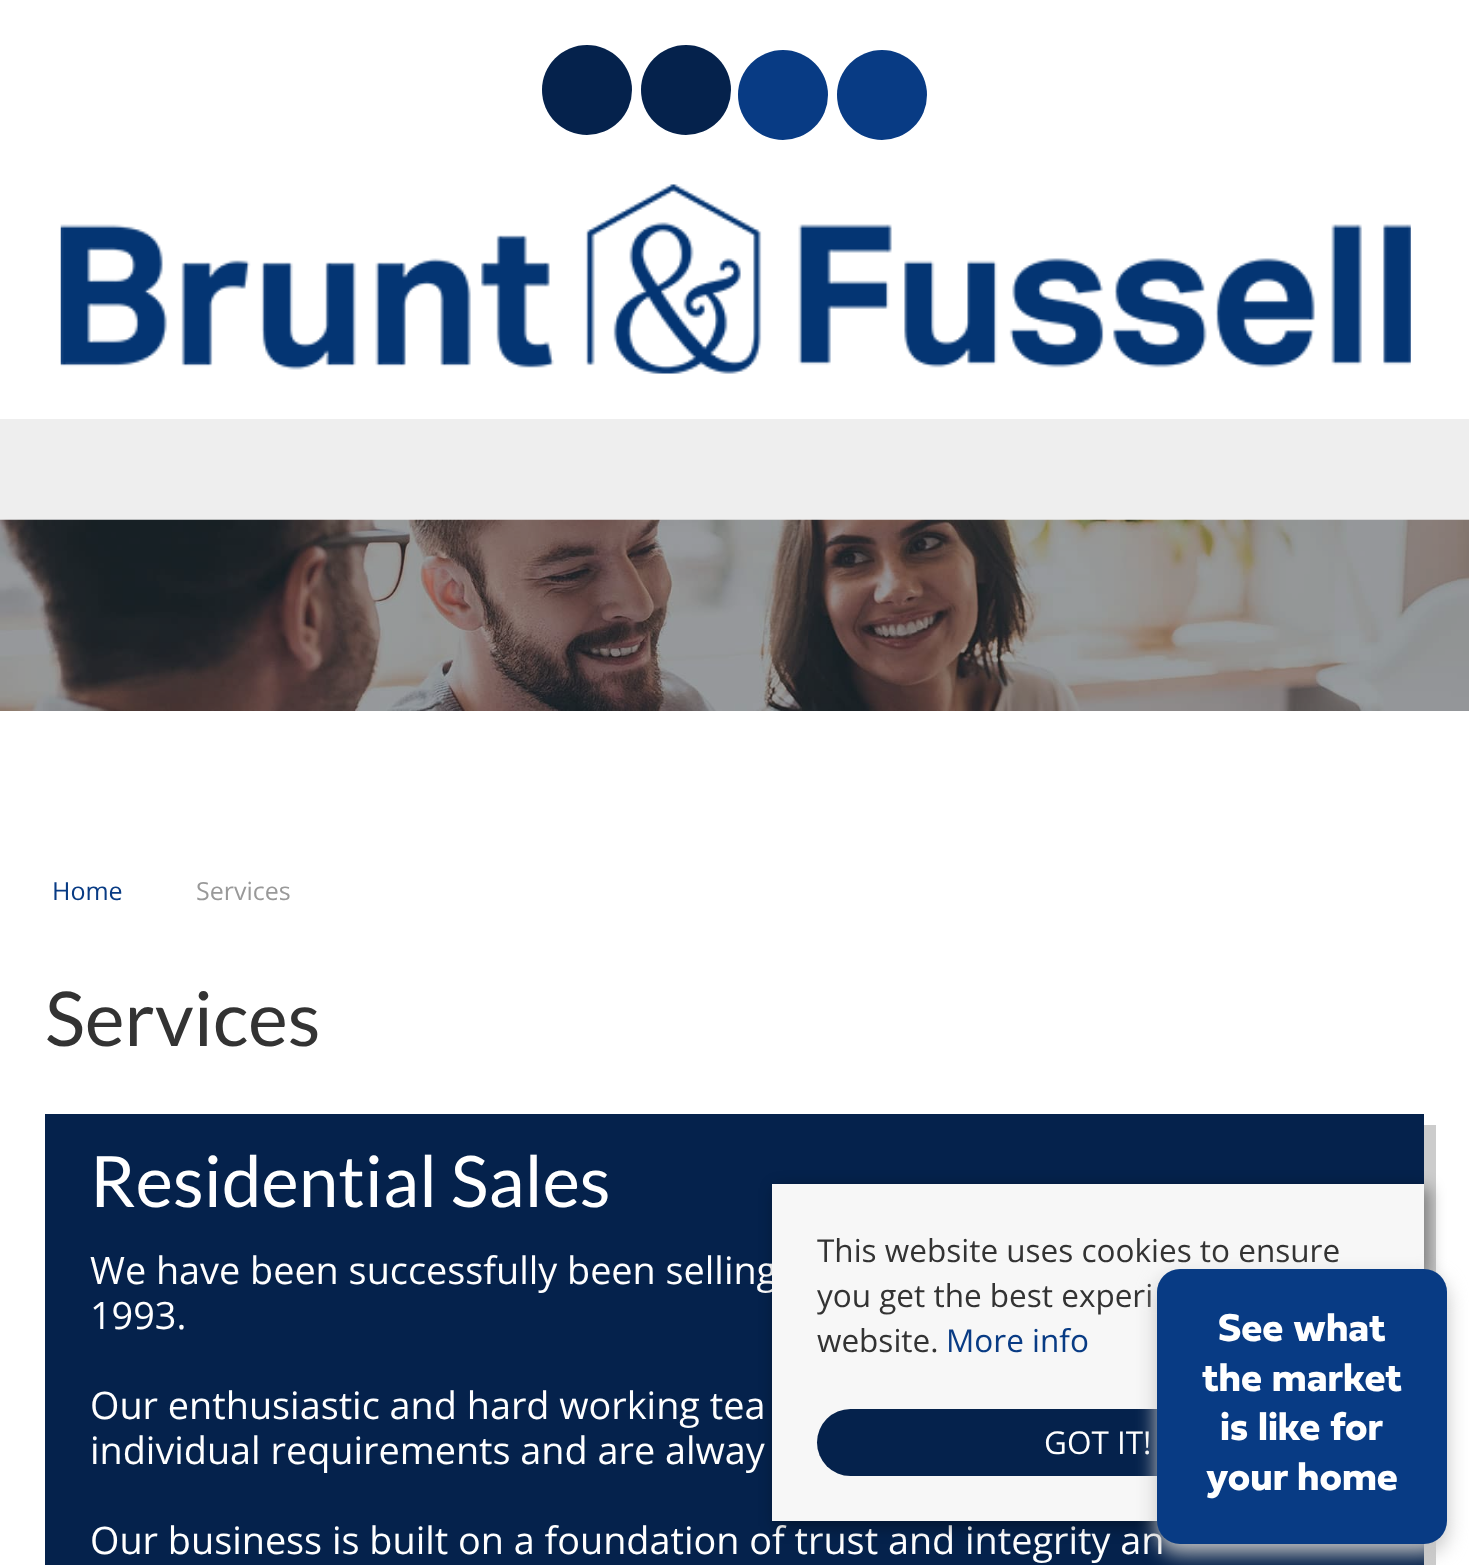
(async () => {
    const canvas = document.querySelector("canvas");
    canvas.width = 1469;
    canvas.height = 1565;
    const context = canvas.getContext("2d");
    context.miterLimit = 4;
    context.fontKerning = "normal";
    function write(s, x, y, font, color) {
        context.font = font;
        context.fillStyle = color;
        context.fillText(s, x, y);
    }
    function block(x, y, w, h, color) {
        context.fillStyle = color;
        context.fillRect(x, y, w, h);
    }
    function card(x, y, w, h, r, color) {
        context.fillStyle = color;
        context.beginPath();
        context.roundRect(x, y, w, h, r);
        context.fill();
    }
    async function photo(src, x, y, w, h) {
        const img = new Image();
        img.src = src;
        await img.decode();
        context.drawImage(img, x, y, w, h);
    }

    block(0, 0, 1469, 1565, "rgb(238, 238, 238)");
    block(0, 0, 1469, 419, "rgb(255, 255, 255)");
    context.fillStyle = "rgb(5, 34, 76)";
    context.beginPath();
    context.arc(587, 90, 45, 0, Math.PI * 2);
    context.fill();
    context.beginPath();
    context.arc(686, 90, 45, 0, Math.PI * 2);
    context.fill();
    context.fillStyle = "rgb(8, 59, 132)";
    context.beginPath();
    context.arc(783, 95, 45, 0, Math.PI * 2);
    context.fill();
    context.beginPath();
    context.arc(882, 95, 45, 0, Math.PI * 2);
    context.fill();
    await photo("media/1.png", 60, 184, 1351, 190);
    await photo("media/2.png", 0, 519, 1469, 192);
    block(0, 711, 1469, 854, "rgb(255, 255, 255)");
    write("Home", 52, 900, "25px Open Sans", "rgb(8, 59, 132)");
    write("Services", 196, 900, "25px Open Sans", "rgb(153, 153, 153)");
    write("Services", 45, 1046, "75.5px Lato", "rgb(51, 51, 51)");
    context.fillStyle = "rgb(204, 204, 204)";
    context.beginPath();
    context.moveTo(56, 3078);
    context.lineTo(56, 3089);
    context.lineTo(1436, 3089);
    context.lineTo(1436, 1125);
    context.lineTo(1424, 1125);
    context.lineTo(1424, 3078);
    context.closePath();
    context.fill();
    block(45, 1114, 1379, 451, "rgb(5, 34, 76)");
    write("Residential Sales", 90, 1207, "71px Lato", "rgb(255, 255, 255)");
    write("We have been successfully been selling", 90, 1284, "37.8px Open Sans", "rgb(255, 255, 255)");
    write("1993.", 90, 1329, "37.8px Open Sans", "rgb(255, 255, 255)");
    write("Our enthusiastic and hard working tea", 90, 1419, "37.8px Open Sans", "rgb(255, 255, 255)");
    write("individual requirements and are alway", 90, 1464, "37.8px Open Sans", "rgb(255, 255, 255)");
    write("Our business is built on a foundation of trust and integrity an", 90, 1554, "37.8px Open Sans", "rgb(255, 255, 255)");
    context.fillStyle = "rgba(0, 0, 0, 0.4)";
    context.filter = "blur(8px)";
    context.beginPath();
    context.rect(776, 1188, 653, 338);
    context.fill();
    context.filter = "none";
    block(772, 1184, 652, 337, "rgb(247, 247, 247)");
    write("This website uses cookies to ensure", 817, 1262, "31.5px Open Sans", "rgb(51, 51, 51)");
    write("you get the best experi", 817, 1307, "31.5px Open Sans", "rgb(51, 51, 51)");
    write("website.", 817, 1352, "31.5px Open Sans", "rgb(51, 51, 51)");
    write("More info", 946, 1352, "31.5px Open Sans", "rgb(8, 59, 132)");
    card(817, 1409, 562, 67, 33.5, "rgb(5, 34, 76)");
    write("GOT IT!", 1044, 1454, "31.5px Open Sans", "rgb(255, 255, 255)");
    context.fillStyle = "rgb(196, 196, 196)";
    context.filter = "blur(10px)";
    context.beginPath();
    context.roundRect(1157, 1278, 290, 275, 23);
    context.fill();
    context.filter = "none";
    card(1157, 1269, 290, 275, 23, "rgb(8, 59, 132)");
    write("See what", 1218, 1341, "bold 40.5px 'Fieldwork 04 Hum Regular'", "rgb(255, 255, 255)");
    write("the market", 1202, 1391, "bold 40.5px 'Fieldwork 04 Hum Regular'", "rgb(255, 255, 255)");
    write("is like for", 1220, 1440, "bold 40.5px 'Fieldwork 04 Hum Regular'", "rgb(255, 255, 255)");
    write("your home", 1206, 1490, "bold 40.5px 'Fieldwork 04 Hum Regular'", "rgb(255, 255, 255)");
})();
